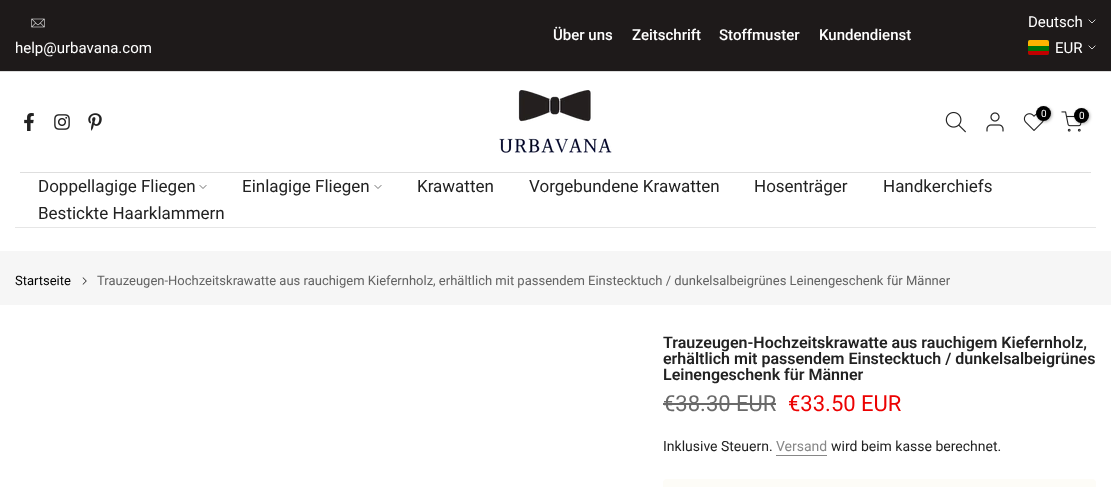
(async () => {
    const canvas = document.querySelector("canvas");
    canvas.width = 1111;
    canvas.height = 487;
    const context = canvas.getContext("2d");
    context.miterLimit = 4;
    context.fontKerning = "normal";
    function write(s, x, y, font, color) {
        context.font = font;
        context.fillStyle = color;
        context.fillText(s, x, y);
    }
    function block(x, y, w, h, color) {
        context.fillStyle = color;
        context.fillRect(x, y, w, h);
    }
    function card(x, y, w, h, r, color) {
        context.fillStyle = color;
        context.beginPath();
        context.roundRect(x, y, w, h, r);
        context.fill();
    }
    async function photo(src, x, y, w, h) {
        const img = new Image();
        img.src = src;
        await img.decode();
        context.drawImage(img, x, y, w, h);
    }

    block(0, 0, 1111, 487, "rgb(255, 255, 255)");
    block(0, 0, 1111, 71, "rgb(30, 26, 26)");
    block(0, 71, 1111, 1, "rgb(221, 221, 221)");
    write("Über uns", 553, 40, "500 15px Roboto", "rgb(255, 255, 255)");
    write("Zeitschrift", 632, 40, "500 15px Roboto", "rgb(255, 255, 255)");
    write("Stoffmuster", 719, 40, "500 15px Roboto", "rgb(255, 255, 255)");
    write("Kundendienst", 819, 40, "500 15px Roboto", "rgb(255, 255, 255)");
    write("Deutsch", 1028, 27, "15px Roboto", "rgb(255, 255, 255)");
    context.beginPath();
    context.moveTo(1095, 20);
    context.lineTo(1092, 23);
    context.lineTo(1089, 20);
    context.moveTo(1095, 46);
    context.lineTo(1092, 49);
    context.lineTo(1089, 46);
    context.strokeStyle = "rgb(255, 255, 255)";
    context.lineWidth = 0.8;
    context.lineCap = "square";
    context.stroke();
    card(1028, 40, 21, 15, 2, "rgb(0, 115, 8)");
    context.fillStyle = "rgb(255, 179, 0)";
    context.beginPath();
    context.roundRect(1028, 40, 21, 6, [2, 2, 0, 0]);
    context.fill();
    write("EUR", 1055, 53, "15px Roboto", "rgb(255, 255, 255)");
    context.fillStyle = "rgb(191, 0, 0)";
    context.beginPath();
    context.roundRect(1028, 51, 21, 4, [0, 0, 2, 2]);
    context.fill();
    await photo("media/1.png", 31, 18, 14, 10);
    write("help@urbavana.com", 15, 53, "15px Roboto", "rgb(255, 255, 255)");
    block(20, 172, 1071, 1, "rgb(222, 222, 222)");
    await photo("media/2.png", 24, 113, 10, 18);
    await photo("media/3.png", 54, 114, 16, 16);
    await photo("media/4.png", 88, 113, 14, 18);
    await photo("media/5.png", 499, 90, 113, 63);
    await photo("media/6.png", 945, 111, 21, 22);
    await photo("media/7.png", 986, 112, 18, 20);
    await photo("media/8.png", 1023, 113, 21, 18);
    context.fillStyle = "rgba(0, 0, 0, 0.3)";
    context.filter = "blur(1.5px)";
    context.beginPath();
    context.roundRect(1037, 107, 15, 15, 7.5);
    context.fill();
    context.filter = "none";
    context.fillStyle = "rgb(0, 0, 0)";
    context.beginPath();
    context.arc(1043.5, 113.5, 7.5, 0, Math.PI * 2);
    context.fill();
    write("0", 1041, 117, "10px Roboto", "rgb(255, 255, 255)");
    await photo("media/9.png", 1061, 111, 21, 21);
    context.fillStyle = "rgba(0, 0, 0, 0.3)";
    context.filter = "blur(1.5px)";
    context.beginPath();
    context.roundRect(1075, 109, 15, 15, 7.5);
    context.fill();
    context.filter = "none";
    context.fillStyle = "rgb(0, 0, 0)";
    context.beginPath();
    context.arc(1081.5, 115.5, 7.5, 0, Math.PI * 2);
    context.fill();
    write("0", 1079, 119, "10px Roboto", "rgb(255, 255, 255)");
    write("Doppellagige Fliegen", 38, 192, "17px Roboto", "rgb(34, 34, 34)");
    context.beginPath();
    context.moveTo(206, 185.5);
    context.lineTo(203, 188.5);
    context.lineTo(200, 185.5);
    context.strokeStyle = "rgb(78, 78, 78)";
    context.stroke();
    write("Einlagige Fliegen", 242, 192, "17px Roboto", "rgb(34, 34, 34)");
    context.beginPath();
    context.moveTo(381, 185.5);
    context.lineTo(378, 188.5);
    context.lineTo(375, 185.5);
    context.stroke();
    write("Krawatten", 417, 192, "17px Roboto", "rgb(34, 34, 34)");
    write("Vorgebundene Krawatten", 529, 192, "17px Roboto", "rgb(34, 34, 34)");
    write("Hosenträger", 754, 192, "17px Roboto", "rgb(34, 34, 34)");
    write("Handkerchiefs", 883, 192, "17px Roboto", "rgb(34, 34, 34)");
    write("Bestickte Haarklammern", 38, 219, "17px Roboto", "rgb(34, 34, 34)");
    block(15, 227, 1081, 1, "rgb(230, 230, 230)");
    block(0, 251, 1111, 54, "rgb(246, 246, 246)");
    write("Startseite", 15, 285, "13px Roboto", "rgb(0, 0, 0)");
    await photo("media/10.png", 82, 277, 5, 8);
    write("Trauzeugen-Hochzeitskrawatte aus rauchigem Kiefernholz, erhältlich mit passendem Einstecktuch / dunkelsalbeigrünes Leinengeschenk für Männer", 97, 285, "13px Roboto", "rgb(98, 98, 98)");
    write("Trauzeugen-Hochzeitskrawatte aus rauchigem Kiefernholz,", 663, 348, "600 16px Roboto", "rgb(34, 34, 34)");
    write("erhältlich mit passendem Einstecktuch / dunkelsalbeigrünes", 663, 364, "600 16px Roboto", "rgb(34, 34, 34)");
    write("Leinengeschenk für Männer", 663, 380, "600 16px Roboto", "rgb(34, 34, 34)");
    write("€38.30 EUR", 663, 411, "22px Roboto", "rgb(105, 105, 105)");
    block(663, 403, 113, 2, "rgb(105, 105, 105)");
    write("€33.50 EUR", 788, 411, "22px Roboto", "rgb(236, 1, 1)");
    write("Inklusive Steuern.", 663, 451, "14px Roboto", "rgb(34, 34, 34)");
    write("Versand", 776, 451, "14px Roboto", "rgb(135, 135, 135)");
    block(776, 455, 51, 1, "rgb(135, 135, 135)");
    write("wird beim kasse berechnet.", 831, 451, "14px Roboto", "rgb(34, 34, 34)");
    card(663, 479, 433, 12, 4, "rgb(253, 252, 247)");
})();
